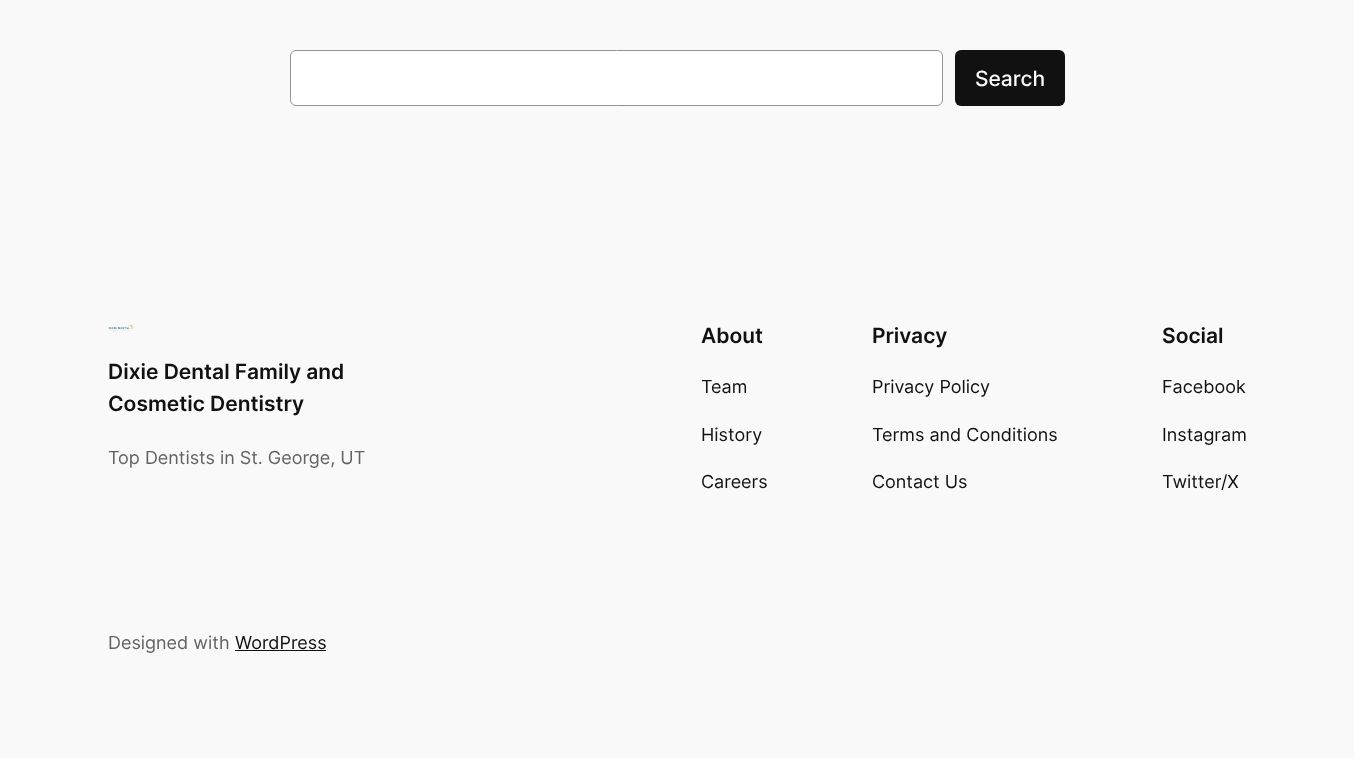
(async () => {
    const canvas = document.querySelector("canvas");
    canvas.width = 1354;
    canvas.height = 758;
    const context = canvas.getContext("2d");
    context.miterLimit = 4;
    context.fontKerning = "normal";
    function write(s, x, y, font, color) {
        context.font = font;
        context.fillStyle = color;
        context.fillText(s, x, y);
    }
    function block(x, y, w, h, color) {
        context.fillStyle = color;
        context.fillRect(x, y, w, h);
    }
    function card(x, y, w, h, r, color) {
        context.fillStyle = color;
        context.beginPath();
        context.roundRect(x, y, w, h, r);
        context.fill();
    }
    async function photo(src, x, y, w, h) {
        const img = new Image();
        img.src = src;
        await img.decode();
        context.drawImage(img, x, y, w, h);
    }

    block(0, 0, 1354, 758, "rgb(249, 249, 249)");
    context.fillStyle = "rgb(255, 255, 255)";
    context.beginPath();
    context.roundRect(290.5, 50.5, 652, 55, 5.5);
    context.fill();
    context.strokeStyle = "rgb(148, 148, 148)";
    context.stroke();
    card(955, 50, 110, 56, 6, "rgb(17, 17, 17)");
    write("Search", 975, 86, "500 21px Inter", "rgb(249, 249, 249)");
    await photo("media/1.png", 108, 324, 26, 7);
    write("Dixie Dental Family and", 108, 379, "600 21px Inter", "rgb(17, 17, 17)");
    write("Cosmetic Dentistry", 108, 411, "600 21px Inter", "rgb(17, 17, 17)");
    write("Top Dentists in St. George, UT", 108, 464, "18px Inter", "rgb(99, 99, 99)");
    write("About", 701, 343, "600 21px Inter", "rgb(17, 17, 17)");
    write("Team", 701, 393, "18px Inter", "rgb(17, 17, 17)");
    write("History", 701, 441, "18px Inter", "rgb(17, 17, 17)");
    write("Careers", 701, 488, "18px Inter", "rgb(17, 17, 17)");
    write("Privacy", 872, 343, "600 21px Inter", "rgb(17, 17, 17)");
    write("Privacy Policy", 872, 393, "18px Inter", "rgb(17, 17, 17)");
    write("Terms and Conditions", 872, 441, "18px Inter", "rgb(17, 17, 17)");
    write("Contact Us", 872, 488, "18px Inter", "rgb(17, 17, 17)");
    write("Social", 1162, 343, "600 21px Inter", "rgb(17, 17, 17)");
    write("Facebook", 1162, 393, "18px Inter", "rgb(17, 17, 17)");
    write("Instagram", 1162, 441, "18px Inter", "rgb(17, 17, 17)");
    write("Twitter/X", 1162, 488, "18px Inter", "rgb(17, 17, 17)");
    write("Designed with", 108, 649, "18px Inter", "rgb(99, 99, 99)");
    write("WordPress", 235, 649, "18px Inter", "rgb(17, 17, 17)");
    block(235, 650, 91, 1, "rgb(17, 17, 17)");
})();
